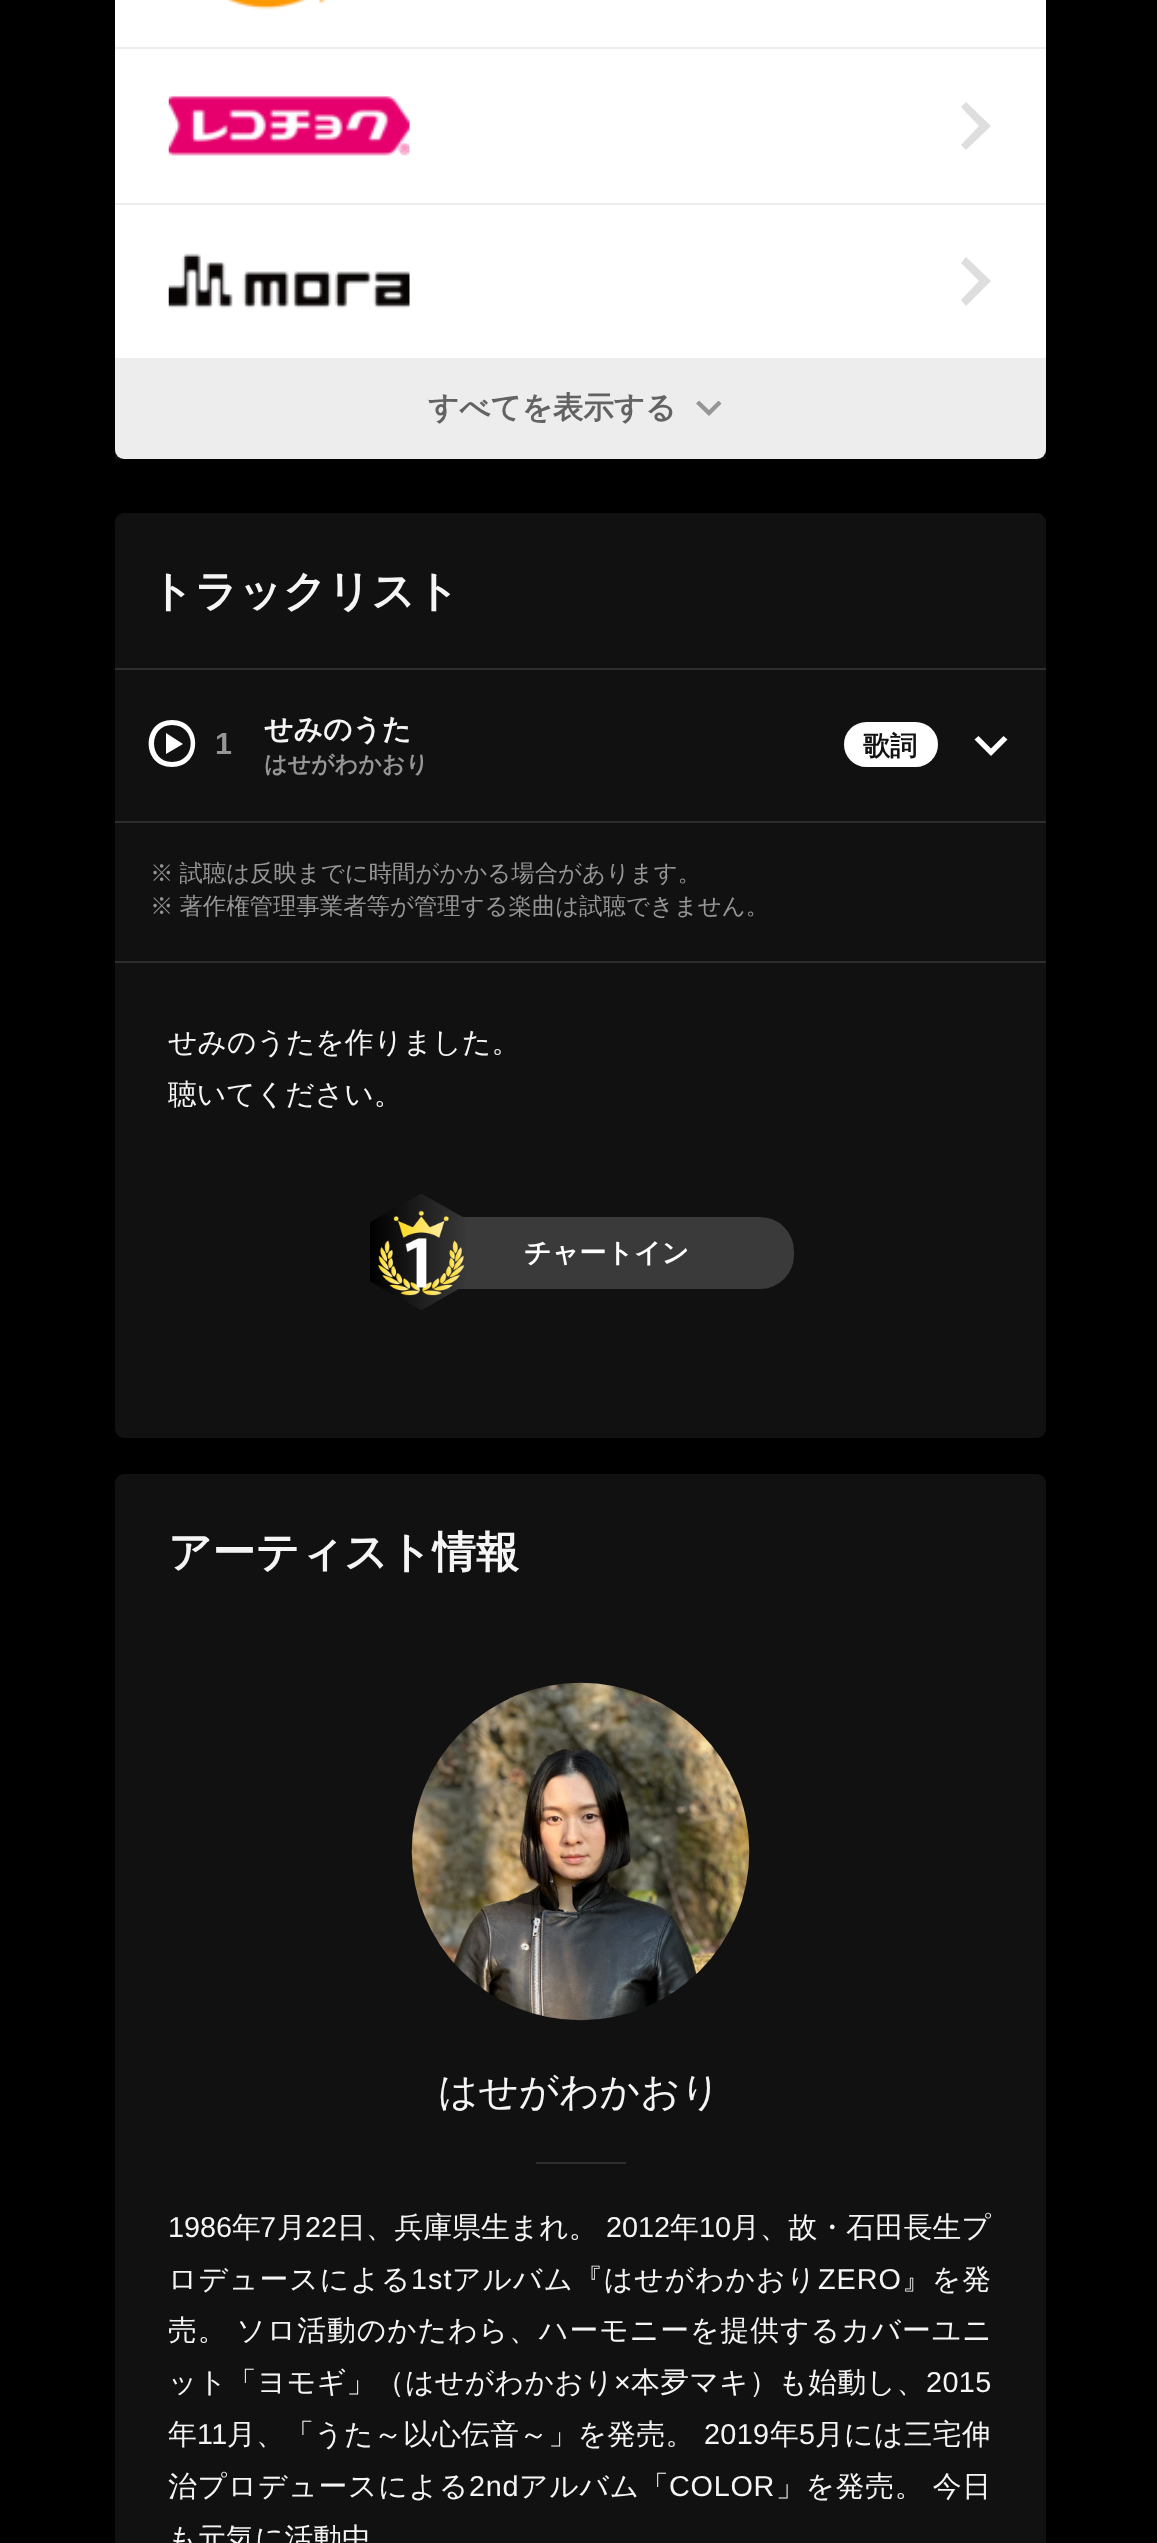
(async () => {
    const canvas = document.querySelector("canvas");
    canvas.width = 1157;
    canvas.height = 2543;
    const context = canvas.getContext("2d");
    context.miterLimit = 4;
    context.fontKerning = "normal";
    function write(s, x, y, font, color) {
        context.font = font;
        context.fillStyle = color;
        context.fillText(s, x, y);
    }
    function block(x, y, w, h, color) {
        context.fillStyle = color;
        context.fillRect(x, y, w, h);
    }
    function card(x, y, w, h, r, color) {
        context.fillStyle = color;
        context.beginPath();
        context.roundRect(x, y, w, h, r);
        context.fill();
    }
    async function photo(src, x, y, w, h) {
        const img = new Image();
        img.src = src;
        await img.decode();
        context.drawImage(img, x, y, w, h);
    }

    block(0, 0, 1157, 2543, "rgb(0, 0, 0)");
    block(115, 450, 931, 9, "rgb(17, 17, 17)");
    block(115, 0, 931, 358, "rgb(255, 255, 255)");
    await photo("media/1.png", 224, 0, 103, 10);
    block(115, 47, 931, 2, "rgb(237, 237, 237)");
    await photo("media/2.png", 168, 95, 242, 61);
    context.fillStyle = "rgb(222, 222, 222)";
    context.beginPath();
    context.moveTo(961, 145);
    context.lineTo(979, 126);
    context.lineTo(961, 107);
    context.lineTo(966, 102);
    context.lineTo(991, 126);
    context.lineTo(966, 150);
    context.closePath();
    context.fill();
    block(115, 203, 931, 2, "rgb(237, 237, 237)");
    await photo("media/3.png", 168, 253, 242, 56);
    context.fillStyle = "rgb(222, 222, 222)";
    context.beginPath();
    context.moveTo(961, 300);
    context.lineTo(979, 281);
    context.lineTo(961, 263);
    context.lineTo(966, 257);
    context.lineTo(991, 281);
    context.lineTo(966, 306);
    context.closePath();
    context.fill();
    context.fillStyle = "rgb(237, 237, 237)";
    context.beginPath();
    context.roundRect(115, 358, 931, 101, [0, 0, 9, 9]);
    context.fill();
    write("すべてを表示する", 428, 418, "bold 30.5px WenQuanYi Zen Hei", "rgb(99, 99, 99)");
    context.save();
    context.beginPath();
    context.rect(695, 401, 27, 15);
    context.clip();
    context.fillStyle = "rgb(150, 150, 150)";
    context.beginPath();
    context.moveTo(699, 400.5);
    context.lineTo(709, 410);
    context.lineTo(718.5, 400.5);
    context.lineTo(721.5, 403.5);
    context.lineTo(709, 416);
    context.lineTo(696, 403.5);
    context.closePath();
    context.fill();
    context.restore();
    card(115, 513, 931, 925, 9, "rgb(17, 17, 17)");
    block(115, 668, 931, 2, "rgb(46, 46, 46)");
    write("トラックリスト", 150, 606, "bold 43.25px WenQuanYi Zen Hei", "rgb(245, 245, 245)");
    block(115, 961, 931, 2, "rgb(46, 46, 46)");
    block(115, 821, 931, 2, "rgb(46, 46, 46)");
    context.fillStyle = "rgb(255, 255, 255)";
    context.beginPath();
    context.moveTo(172, 720);
    context.bezierCurveTo(141, 720, 141, 767, 172, 767);
    context.bezierCurveTo(203, 767, 203, 720, 172, 720);
    context.closePath();
    context.moveTo(172, 762);
    context.bezierCurveTo(148, 762, 148, 725, 172, 725);
    context.bezierCurveTo(197, 725, 197, 762, 172, 762);
    context.closePath();
    context.moveTo(166, 754);
    context.lineTo(183, 744);
    context.lineTo(166, 733);
    context.closePath();
    context.fill();
    write("1", 215, 754, "bold 30.5px Liberation Sans", "rgb(150, 150, 150)");
    write("せみのうた", 264, 739, "bold 28.8px WenQuanYi Zen Hei", "rgb(245, 245, 245)");
    write("はせがわかおり", 264, 772, "bold 23px WenQuanYi Zen Hei", "rgb(150, 150, 150)");
    context.fillStyle = "rgb(255, 255, 255)";
    context.beginPath();
    context.roundRect(845, 723, 92, 43, 21.5);
    context.fill();
    context.strokeStyle = "rgb(255, 255, 255)";
    context.lineWidth = 2;
    context.stroke();
    write("歌詞", 863, 755, "bold 27px WenQuanYi Zen Hei", "rgb(17, 17, 17)");
    context.fillStyle = "rgb(255, 255, 255)";
    context.beginPath();
    context.moveTo(1003.5, 736);
    context.lineTo(991, 748.5);
    context.lineTo(978.5, 736);
    context.lineTo(974.5, 739.5);
    context.lineTo(991, 756);
    context.lineTo(1007.5, 739.5);
    context.closePath();
    context.fill();
    context.wordSpacing = "-1px";
    write("※ 試聴は反映までに時間がかかる場合があります。", 150, 881, "500 23.4px WenQuanYi Zen Hei", "rgb(150, 150, 150)");
    write("※ 著作権管理事業者等が管理する楽曲は試聴できません。", 150, 914, "500 23.4px WenQuanYi Zen Hei", "rgb(150, 150, 150)");
    context.wordSpacing = "0px";
    write("せみのうたを作りました。", 168, 1052, "500 28.8px WenQuanYi Zen Hei", "rgb(245, 245, 245)");
    write("聴いてください。", 168, 1104, "500 28.8px WenQuanYi Zen Hei", "rgb(245, 245, 245)");
    card(419, 1217, 375, 72, 34, "rgb(58, 58, 58)");
    await photo("media/4.png", 370, 1194, 95, 116);
    write("チャートイン", 524, 1262, "bold 27px WenQuanYi Zen Hei", "rgb(255, 255, 255)");
    card(115, 1474, 931, 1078, 9, "rgb(17, 17, 17)");
    write("アーティスト情報", 168, 1567, "bold 43.25px WenQuanYi Zen Hei", "rgb(245, 245, 245)");
    await photo("media/5.png", 411, 1682, 339, 339);
    write("はせがわかおり", 438, 2105, "500 39.5px WenQuanYi Zen Hei", "rgb(245, 245, 245)");
    block(536, 2162, 90, 2, "rgb(46, 46, 46)");
    write("1986", 168, 2237, "28.8px Liberation Sans", "rgb(245, 245, 245)");
    write("年", 232, 2237, "500 28.8px WenQuanYi Zen Hei", "rgb(245, 245, 245)");
    write("7", 260, 2237, "28.8px Liberation Sans", "rgb(245, 245, 245)");
    write("月", 277, 2237, "500 28.8px WenQuanYi Zen Hei", "rgb(245, 245, 245)");
    write("22", 305, 2237, "28.8px Liberation Sans", "rgb(245, 245, 245)");
    write("日、兵庫県生まれ。", 337, 2237, "500 28.8px WenQuanYi Zen Hei", "rgb(245, 245, 245)");
    write("2012", 606, 2237, "28.8px Liberation Sans", "rgb(245, 245, 245)");
    write("年", 670, 2237, "500 28.8px WenQuanYi Zen Hei", "rgb(245, 245, 245)");
    write("10", 699, 2237, "28.8px Liberation Sans", "rgb(245, 245, 245)");
    write("月、故・石田長生プ", 731, 2237, "500 28.8px WenQuanYi Zen Hei", "rgb(245, 245, 245)");
    context.letterSpacing = "1px";
    write("ロデュースによる", 168, 2289, "500 28.8px WenQuanYi Zen Hei", "rgb(245, 245, 245)");
    write("1st", 411, 2289, "28.8px Liberation Sans", "rgb(245, 245, 245)");
    write("アルバム『はせがわかおり", 452, 2289, "500 28.8px WenQuanYi Zen Hei", "rgb(245, 245, 245)");
    write("ZERO", 818, 2289, "28.8px Liberation Sans", "rgb(245, 245, 245)");
    write("』を発", 902, 2289, "500 28.8px WenQuanYi Zen Hei", "rgb(245, 245, 245)");
    context.wordSpacing = "-1px";
    write("売。 ソロ活動のかたわら、ハーモニーを提供するカバーユニ", 168, 2340, "500 28.8px WenQuanYi Zen Hei", "rgb(245, 245, 245)");
    context.letterSpacing = "0.4px";
    context.wordSpacing = "0px";
    write("ット「ヨモギ」（はせがわかおり", 168, 2392, "500 28.8px WenQuanYi Zen Hei", "rgb(245, 245, 245)");
    write("×", 614, 2392, "28.8px Liberation Sans", "rgb(245, 245, 245)");
    write("本夛マキ）も始動し、", 631, 2392, "500 28.8px WenQuanYi Zen Hei", "rgb(245, 245, 245)");
    write("2015", 926, 2392, "28.8px Liberation Sans", "rgb(245, 245, 245)");
    context.letterSpacing = "0.3px";
    write("年", 168, 2444, "500 28.8px WenQuanYi Zen Hei", "rgb(245, 245, 245)");
    write("11", 197, 2444, "28.8px Liberation Sans", "rgb(245, 245, 245)");
    write("月、「うた～以心伝音～」を発売。", 227, 2444, "500 28.8px WenQuanYi Zen Hei", "rgb(245, 245, 245)");
    write("2019", 704, 2444, "28.8px Liberation Sans", "rgb(245, 245, 245)");
    write("年", 770, 2444, "500 28.8px WenQuanYi Zen Hei", "rgb(245, 245, 245)");
    write("5", 799, 2444, "28.8px Liberation Sans", "rgb(245, 245, 245)");
    write("月には三宅伸", 815, 2444, "500 28.8px WenQuanYi Zen Hei", "rgb(245, 245, 245)");
    context.letterSpacing = "0.75px";
    write("治プロデュースによる", 168, 2496, "500 28.8px WenQuanYi Zen Hei", "rgb(245, 245, 245)");
    write("2nd", 469, 2496, "28.8px Liberation Sans", "rgb(245, 245, 245)");
    write("アルバム「", 519, 2496, "500 28.8px WenQuanYi Zen Hei", "rgb(245, 245, 245)");
    write("COLOR", 669, 2496, "28.8px Liberation Sans", "rgb(245, 245, 245)");
    context.wordSpacing = "-1px";
    write("」を発売。 今日", 776, 2496, "500 28.8px WenQuanYi Zen Hei", "rgb(245, 245, 245)");
    context.letterSpacing = "0px";
    context.wordSpacing = "0px";
    write("も元気に活動中", 168, 2548, "500 28.8px WenQuanYi Zen Hei", "rgb(245, 245, 245)");
})();
